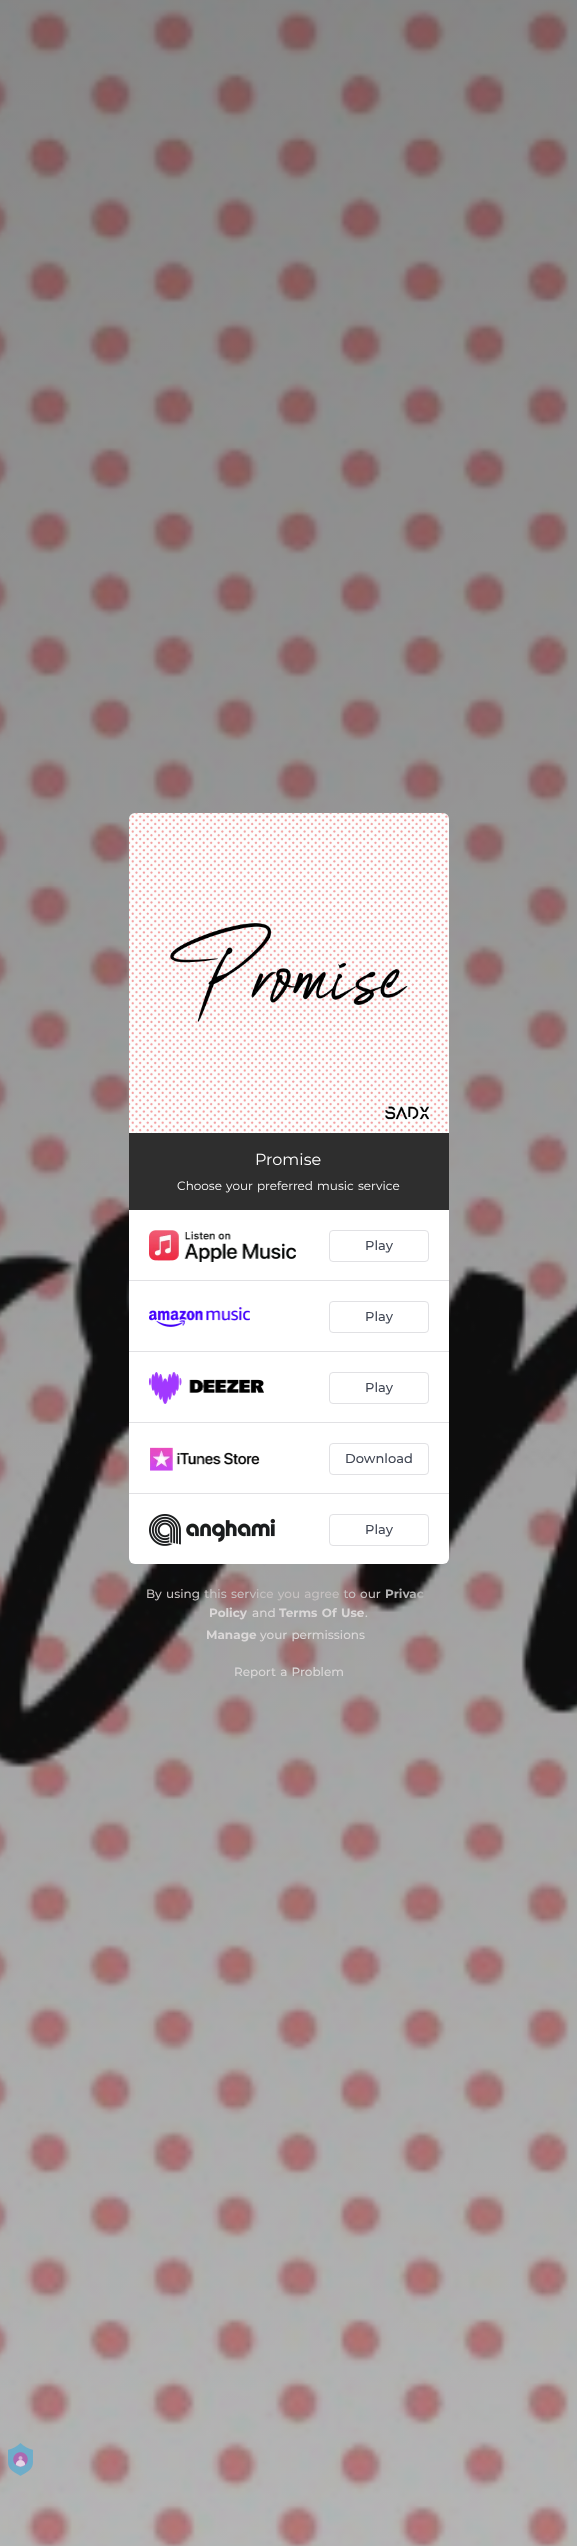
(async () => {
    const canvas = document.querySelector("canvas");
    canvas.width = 577;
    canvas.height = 2546;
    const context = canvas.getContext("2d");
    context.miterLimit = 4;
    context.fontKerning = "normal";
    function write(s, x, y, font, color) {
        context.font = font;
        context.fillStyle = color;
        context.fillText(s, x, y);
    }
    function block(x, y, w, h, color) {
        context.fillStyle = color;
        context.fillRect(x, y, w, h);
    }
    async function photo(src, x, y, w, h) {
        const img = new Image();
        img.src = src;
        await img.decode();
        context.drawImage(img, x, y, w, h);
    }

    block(0, 0, 577, 2546, "rgb(255, 255, 255)");
    await photo("media/1.png", 0, 0, 577, 2546);
    await photo("media/2.png", 129, 813, 320, 320);
    block(129, 1133, 320, 77, "rgb(46, 46, 46)");
    write("Promise", 255, 1165, "16px Montserrat", "rgb(255, 255, 255)");
    context.wordSpacing = "1px";
    write("Choose your preferred music service", 177, 1190, "12px Montserrat", "rgb(255, 255, 255)");
    context.beginPath();
    context.roundRect(129, 1210, 320, 354, [0, 0, 6, 6]);
    context.fill();
    block(129, 1280, 320, 1, "rgb(225, 225, 228)");
    await photo("media/3.png", 149, 1230, 147, 32);
    context.beginPath();
    context.roundRect(329.5, 1230.5, 99, 31, 3.5);
    context.strokeStyle = "rgb(225, 225, 228)";
    context.stroke();
    context.wordSpacing = "0px";
    write("Play", 365, 1250, "500 13px Montserrat", "rgb(65, 71, 84)");
    block(129, 1351, 320, 1, "rgb(225, 225, 228)");
    await photo("media/4.png", 149, 1307, 101, 20);
    context.beginPath();
    context.roundRect(329.5, 1301.5, 99, 31, 3.5);
    context.stroke();
    write("Play", 365, 1321, "500 13px Montserrat", "rgb(65, 71, 84)");
    block(129, 1422, 320, 1, "rgb(225, 225, 228)");
    await photo("media/5.png", 149, 1372, 115, 32);
    context.beginPath();
    context.roundRect(329.5, 1372.5, 99, 31, 3.5);
    context.stroke();
    write("Play", 365, 1392, "500 13px Montserrat", "rgb(65, 71, 84)");
    block(129, 1493, 320, 1, "rgb(225, 225, 228)");
    await photo("media/6.png", 150, 1447, 110, 24);
    context.beginPath();
    context.roundRect(329.5, 1443.5, 99, 31, 3.5);
    context.stroke();
    write("Download", 345, 1463, "500 13px Montserrat", "rgb(65, 71, 84)");
    await photo("media/7.png", 149, 1514, 126, 32);
    context.beginPath();
    context.roundRect(329.5, 1514.5, 99, 31, 3.5);
    context.stroke();
    write("Play", 365, 1534, "500 13px Montserrat", "rgb(65, 71, 84)");
    context.wordSpacing = "1px";
    write("By using this service you agree to our", 146, 1598, "500 12px Montserrat", "rgb(198, 193, 193)");
    context.wordSpacing = "0px";
    write("Privac", 385, 1598, "bold 12px Montserrat", "rgb(178, 178, 178)");
    write("Policy", 209, 1617, "bold 12px Montserrat", "rgb(218, 215, 215)");
    write("and", 252, 1617, "500 12px Montserrat", "rgb(218, 215, 215)");
    context.wordSpacing = "1px";
    write("Terms Of Use", 279, 1617, "bold 12px Montserrat", "rgb(218, 215, 215)");
    context.wordSpacing = "0px";
    write(".", 365, 1617, "500 12px Montserrat", "rgb(218, 215, 215)");
    write("Manage", 206, 1639, "bold 12px Montserrat", "rgb(218, 215, 215)");
    context.wordSpacing = "1px";
    write("your permissions", 260, 1639, "500 12px Montserrat", "rgb(218, 215, 215)");
    write("Report a Problem", 234, 1676, "500 12px Montserrat", "rgb(218, 215, 215)");
    await photo("media/8.png", 8, 2443, 25, 33);
})();
